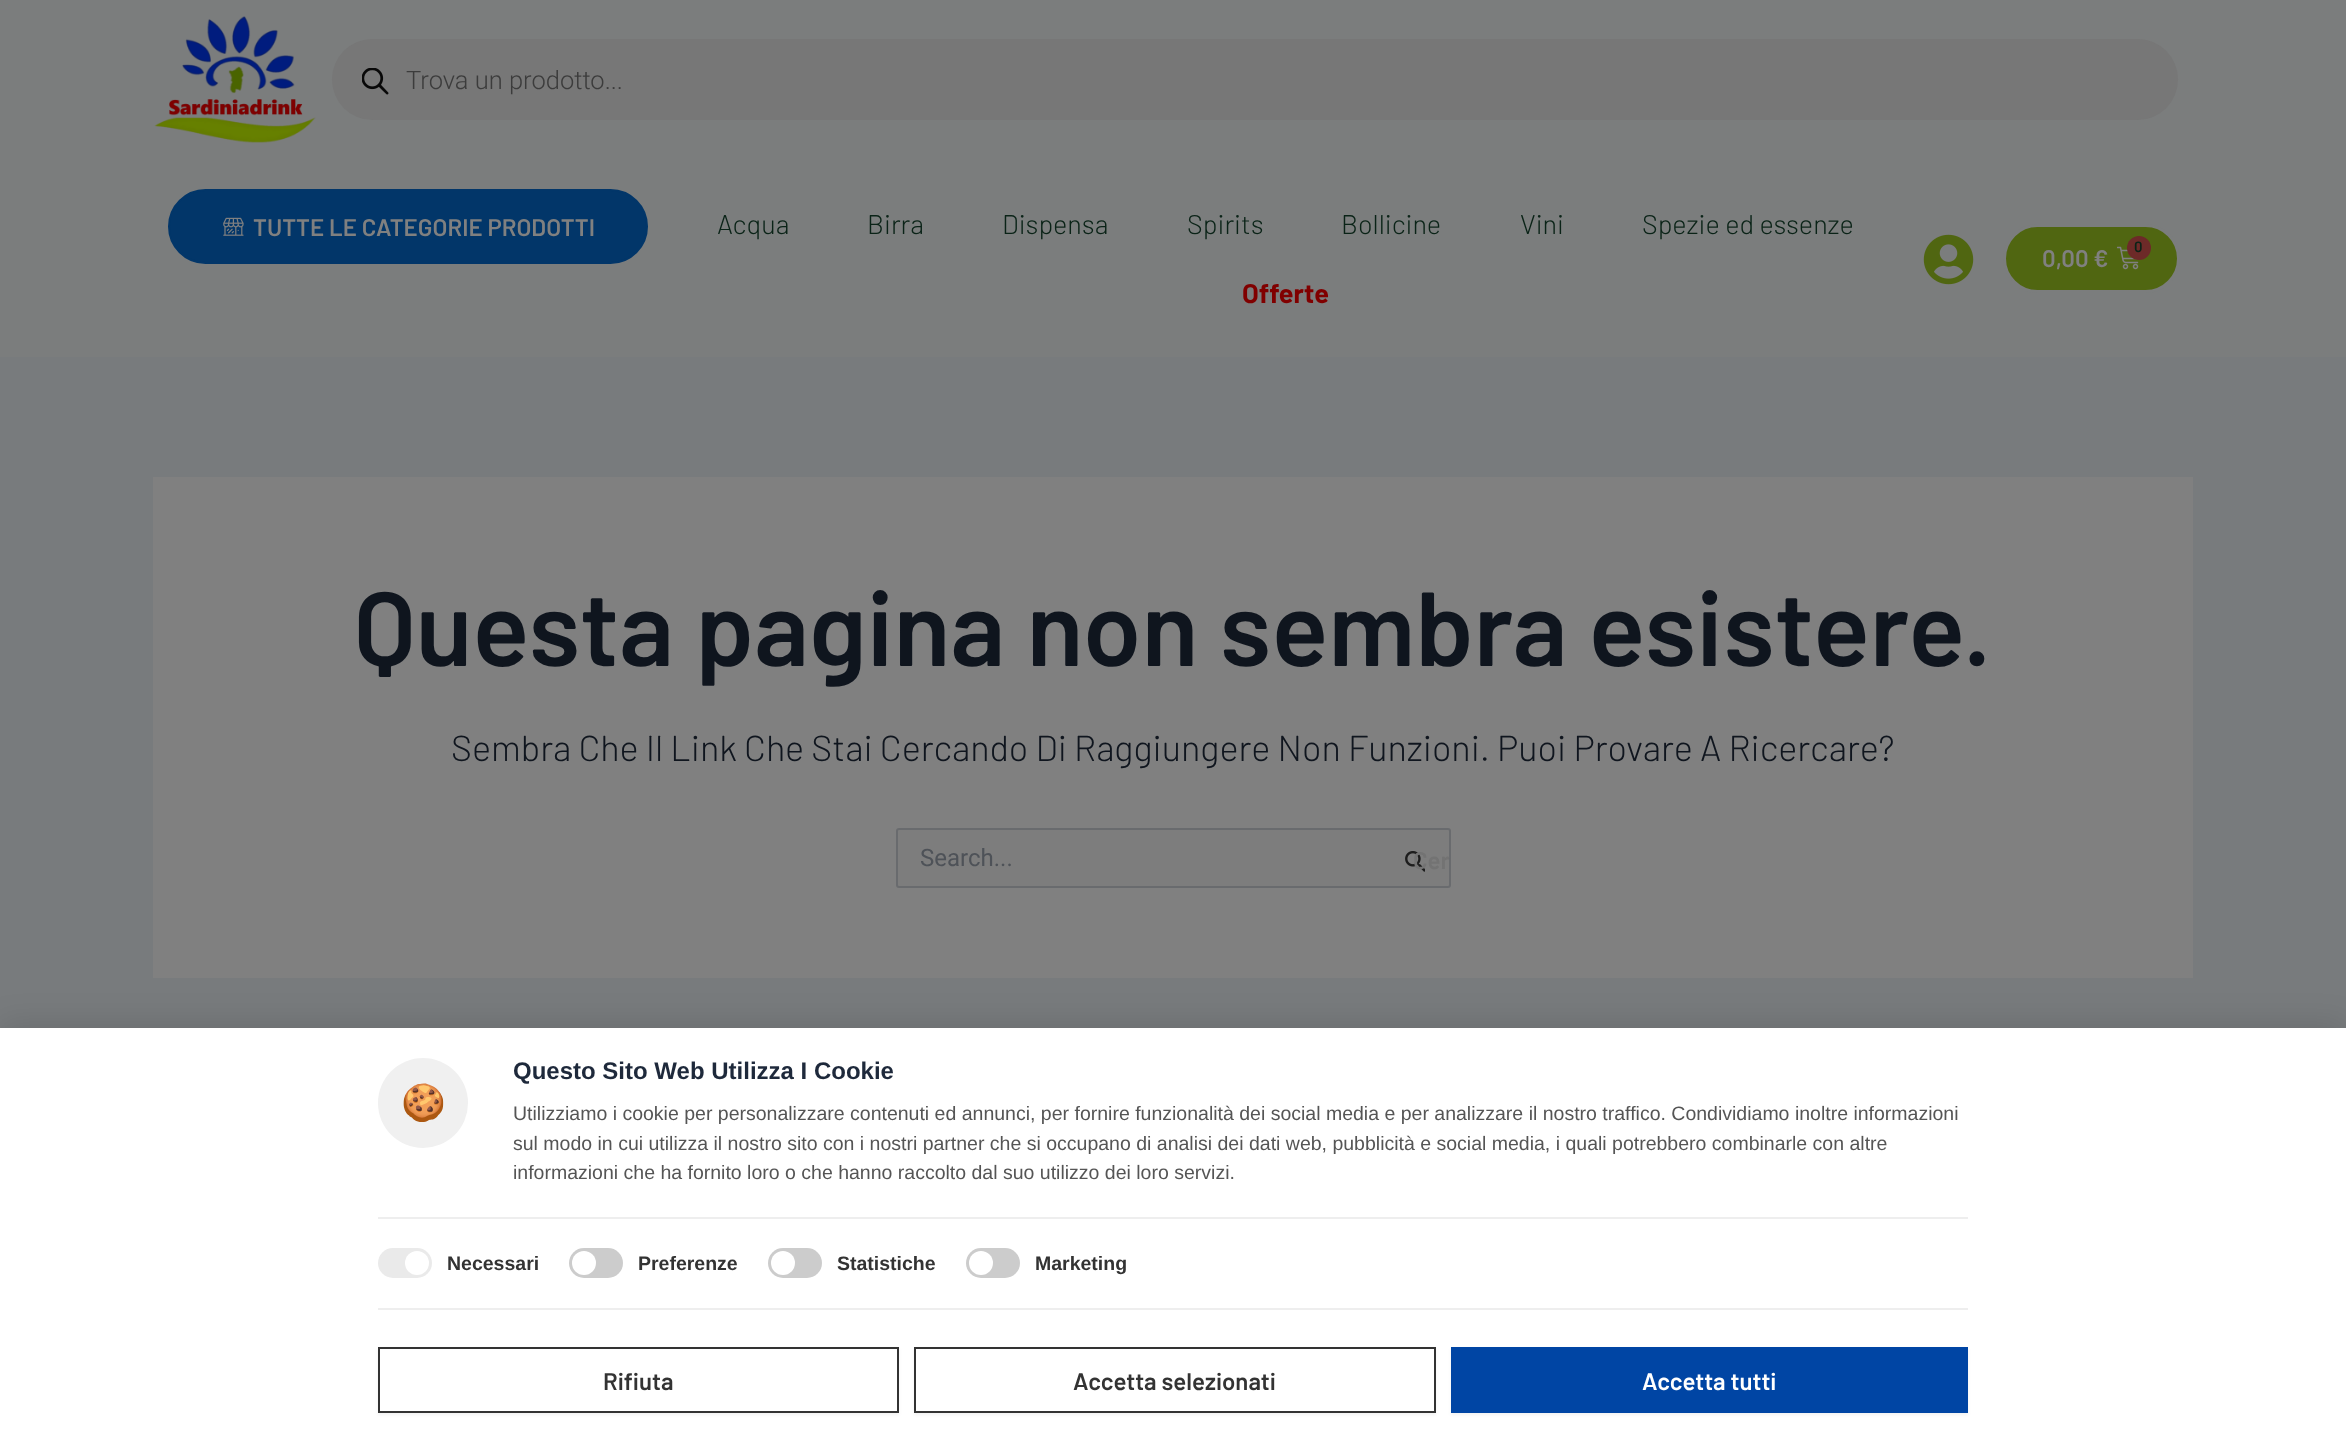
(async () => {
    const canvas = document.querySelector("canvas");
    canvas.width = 2346;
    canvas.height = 1442;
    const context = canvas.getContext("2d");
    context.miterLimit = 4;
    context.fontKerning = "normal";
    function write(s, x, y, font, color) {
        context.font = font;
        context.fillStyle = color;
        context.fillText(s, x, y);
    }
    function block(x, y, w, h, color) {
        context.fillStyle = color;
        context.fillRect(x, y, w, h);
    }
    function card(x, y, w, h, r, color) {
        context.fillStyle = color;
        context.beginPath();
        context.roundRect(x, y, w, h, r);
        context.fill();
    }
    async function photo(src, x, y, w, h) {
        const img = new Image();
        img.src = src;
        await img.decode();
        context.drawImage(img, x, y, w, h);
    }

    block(0, 0, 2346, 1442, "rgb(120, 123, 125)");
    block(0, 0, 2346, 357, "rgb(123, 125, 125)");
    await photo("media/1.png", 154, 16, 162, 127);
    card(332, 39, 1846, 81, 40.5, "rgb(119, 119, 119)");
    await photo("media/2.png", 362, 68, 27, 27);
    write("Trova un prodotto...", 406, 89, "300 25.5px Roboto", "rgb(60, 60, 60)");
    context.fillStyle = "rgb(2, 54, 105)";
    context.beginPath();
    context.roundRect(169, 190, 478, 73, 36.5);
    context.fill();
    context.strokeStyle = "rgb(2, 54, 105)";
    context.lineWidth = 2;
    context.stroke();
    await photo("media/3.png", 223, 217, 21, 19);
    write("TUTTE LE CATEGORIE PRODOTTI", 253, 236, "600 24px Barlow", "rgb(128, 128, 128)");
    write("Acqua", 717, 234, "300 27px Barlow", "rgb(10, 35, 23)");
    write("Birra", 867, 234, "300 27px Barlow", "rgb(10, 35, 23)");
    write("Dispensa", 1002, 234, "300 27px Barlow", "rgb(10, 35, 23)");
    write("Spirits", 1187, 234, "300 27px Barlow", "rgb(10, 35, 23)");
    write("Bollicine", 1341, 234, "300 27px Barlow", "rgb(10, 35, 23)");
    write("Vini", 1520, 234, "300 27px Barlow", "rgb(10, 35, 23)");
    write("Spezie ed essenze", 1642, 234, "300 27px Barlow", "rgb(10, 35, 23)");
    write("Offerte", 1242, 303, "bold 27px Barlow", "rgb(128, 0, 0)");
    await photo("media/4.png", 1923, 234, 51, 51);
    context.fillStyle = "rgb(80, 102, 17)";
    context.beginPath();
    context.roundRect(2004.5, 225.5, 174, 66, 33);
    context.fill();
    context.strokeStyle = "rgb(123, 125, 125)";
    context.lineWidth = 3;
    context.stroke();
    await photo("media/5.png", 2117, 246, 22, 24);
    context.fillStyle = "rgb(109, 42, 40)";
    context.beginPath();
    context.arc(2139, 248, 12, 0, Math.PI * 2);
    context.fill();
    write("0", 2134, 252, "600 15px Barlow", "rgb(10, 35, 23)");
    write("0,00 €", 2042, 267, "600 24px Barlow", "rgb(128, 128, 128)");
    block(153, 477, 2040, 501, "rgb(128, 128, 128)");
    write("Questa pagina non sembra esistere.", 354, 666, "600 105px Barlow", "rgb(15, 21, 30)");
    write("Sembra Che Il Link Che Stai Cercando Di Raggiungere Non Funzioni. Puoi Provare A Ricercare?", 451, 761, "300 36px Barlow", "rgb(15, 21, 30)");
    context.fillStyle = "rgb(125, 125, 125)";
    context.beginPath();
    context.roundRect(897, 829, 553, 58, 2);
    context.fill();
    context.strokeStyle = "rgb(105, 107, 110)";
    context.lineWidth = 2;
    context.stroke();
    write("Search...", 920, 866, "24px Roboto", "rgb(78, 82, 88)");
    await photo("media/6.png", 1405, 851, 20, 21);
    write("Cer", 1413, 869, "600 24px Barlow", "rgb(115, 115, 115)");
    context.fillStyle = "rgba(0, 0, 0, 0.1)";
    context.filter = "blur(15px)";
    context.beginPath();
    context.rect(0, 1022, 2346, 415);
    context.fill();
    context.filter = "none";
    block(0, 1028, 2346, 414, "rgb(255, 255, 255)");
    context.fillStyle = "rgb(240, 240, 240)";
    context.beginPath();
    context.arc(423, 1103, 45, 0, Math.PI * 2);
    context.fill();
    write("🍪", 401, 1115, "36px Noto Color Emoji", "rgb(51, 51, 51)");
    write("Questo Sito Web Utilizza I Cookie", 513, 1079, "bold 24px Liberation Sans", "rgb(30, 41, 59)");
    write("Utilizziamo i cookie per personalizzare contenuti ed annunci, per fornire funzionalità dei social media e per analizzare il nostro traffico. Condividiamo inoltre informazioni", 513, 1120, "19.5px Liberation Sans", "rgb(85, 85, 85)");
    write("sul modo in cui utilizza il nostro sito con i nostri partner che si occupano di analisi dei dati web, pubblicità e social media, i quali potrebbero combinarle con altre", 513, 1150, "19.5px Liberation Sans", "rgb(85, 85, 85)");
    write("informazioni che ha fornito loro o che hanno raccolto dal suo utilizzo dei loro servizi.", 513, 1179, "19.5px Liberation Sans", "rgb(85, 85, 85)");
    block(378, 1217, 1590, 2, "rgb(238, 238, 238)");
    block(378, 1308, 1590, 2, "rgb(238, 238, 238)");
    card(378, 1248, 54, 30, 15, "rgb(234, 234, 234)");
    context.fillStyle = "rgb(255, 255, 255)";
    context.beginPath();
    context.arc(417, 1263, 12, 0, Math.PI * 2);
    context.fill();
    write("Necessari", 447, 1270, "bold 19.5px Liberation Sans", "rgb(51, 51, 51)");
    card(569, 1248, 54, 30, 15, "rgb(204, 204, 204)");
    context.fillStyle = "rgb(255, 255, 255)";
    context.beginPath();
    context.arc(584, 1263, 12, 0, Math.PI * 2);
    context.fill();
    write("Preferenze", 638, 1270, "bold 19.5px Liberation Sans", "rgb(51, 51, 51)");
    card(768, 1248, 54, 30, 15, "rgb(204, 204, 204)");
    context.fillStyle = "rgb(255, 255, 255)";
    context.beginPath();
    context.arc(783, 1263, 12, 0, Math.PI * 2);
    context.fill();
    write("Statistiche", 837, 1270, "bold 19.5px Liberation Sans", "rgb(51, 51, 51)");
    card(966, 1248, 54, 30, 15, "rgb(204, 204, 204)");
    context.fillStyle = "rgb(255, 255, 255)";
    context.beginPath();
    context.arc(981, 1263, 12, 0, Math.PI * 2);
    context.fill();
    write("Marketing", 1035, 1270, "bold 19.5px Liberation Sans", "rgb(51, 51, 51)");
    context.fillStyle = "rgba(0, 0, 0, 0.05)";
    context.filter = "blur(1.5px)";
    context.beginPath();
    context.rect(378, 1349, 521, 66);
    context.fill();
    context.filter = "none";
    context.fillStyle = "rgb(255, 255, 255)";
    context.beginPath();
    context.rect(379, 1348, 519, 64);
    context.fill();
    context.strokeStyle = "rgb(51, 51, 51)";
    context.stroke();
    write("Rifiuta", 603, 1390, "600 24px Barlow", "rgb(51, 51, 51)");
    context.fillStyle = "rgba(0, 0, 0, 0.05)";
    context.filter = "blur(1.5px)";
    context.beginPath();
    context.rect(914, 1349, 522, 66);
    context.fill();
    context.filter = "none";
    context.fillStyle = "rgb(255, 255, 255)";
    context.beginPath();
    context.rect(915, 1348, 520, 64);
    context.fill();
    context.stroke();
    write("Accetta selezionati", 1073, 1390, "600 24px Barlow", "rgb(51, 51, 51)");
    context.fillStyle = "rgba(0, 0, 0, 0.05)";
    context.filter = "blur(1.5px)";
    context.beginPath();
    context.rect(1451, 1349, 517, 66);
    context.fill();
    context.filter = "none";
    block(1451, 1347, 517, 66, "rgb(0, 69, 164)");
    write("Accetta tutti", 1642, 1390, "600 24px Barlow", "rgb(255, 255, 255)");
})();
